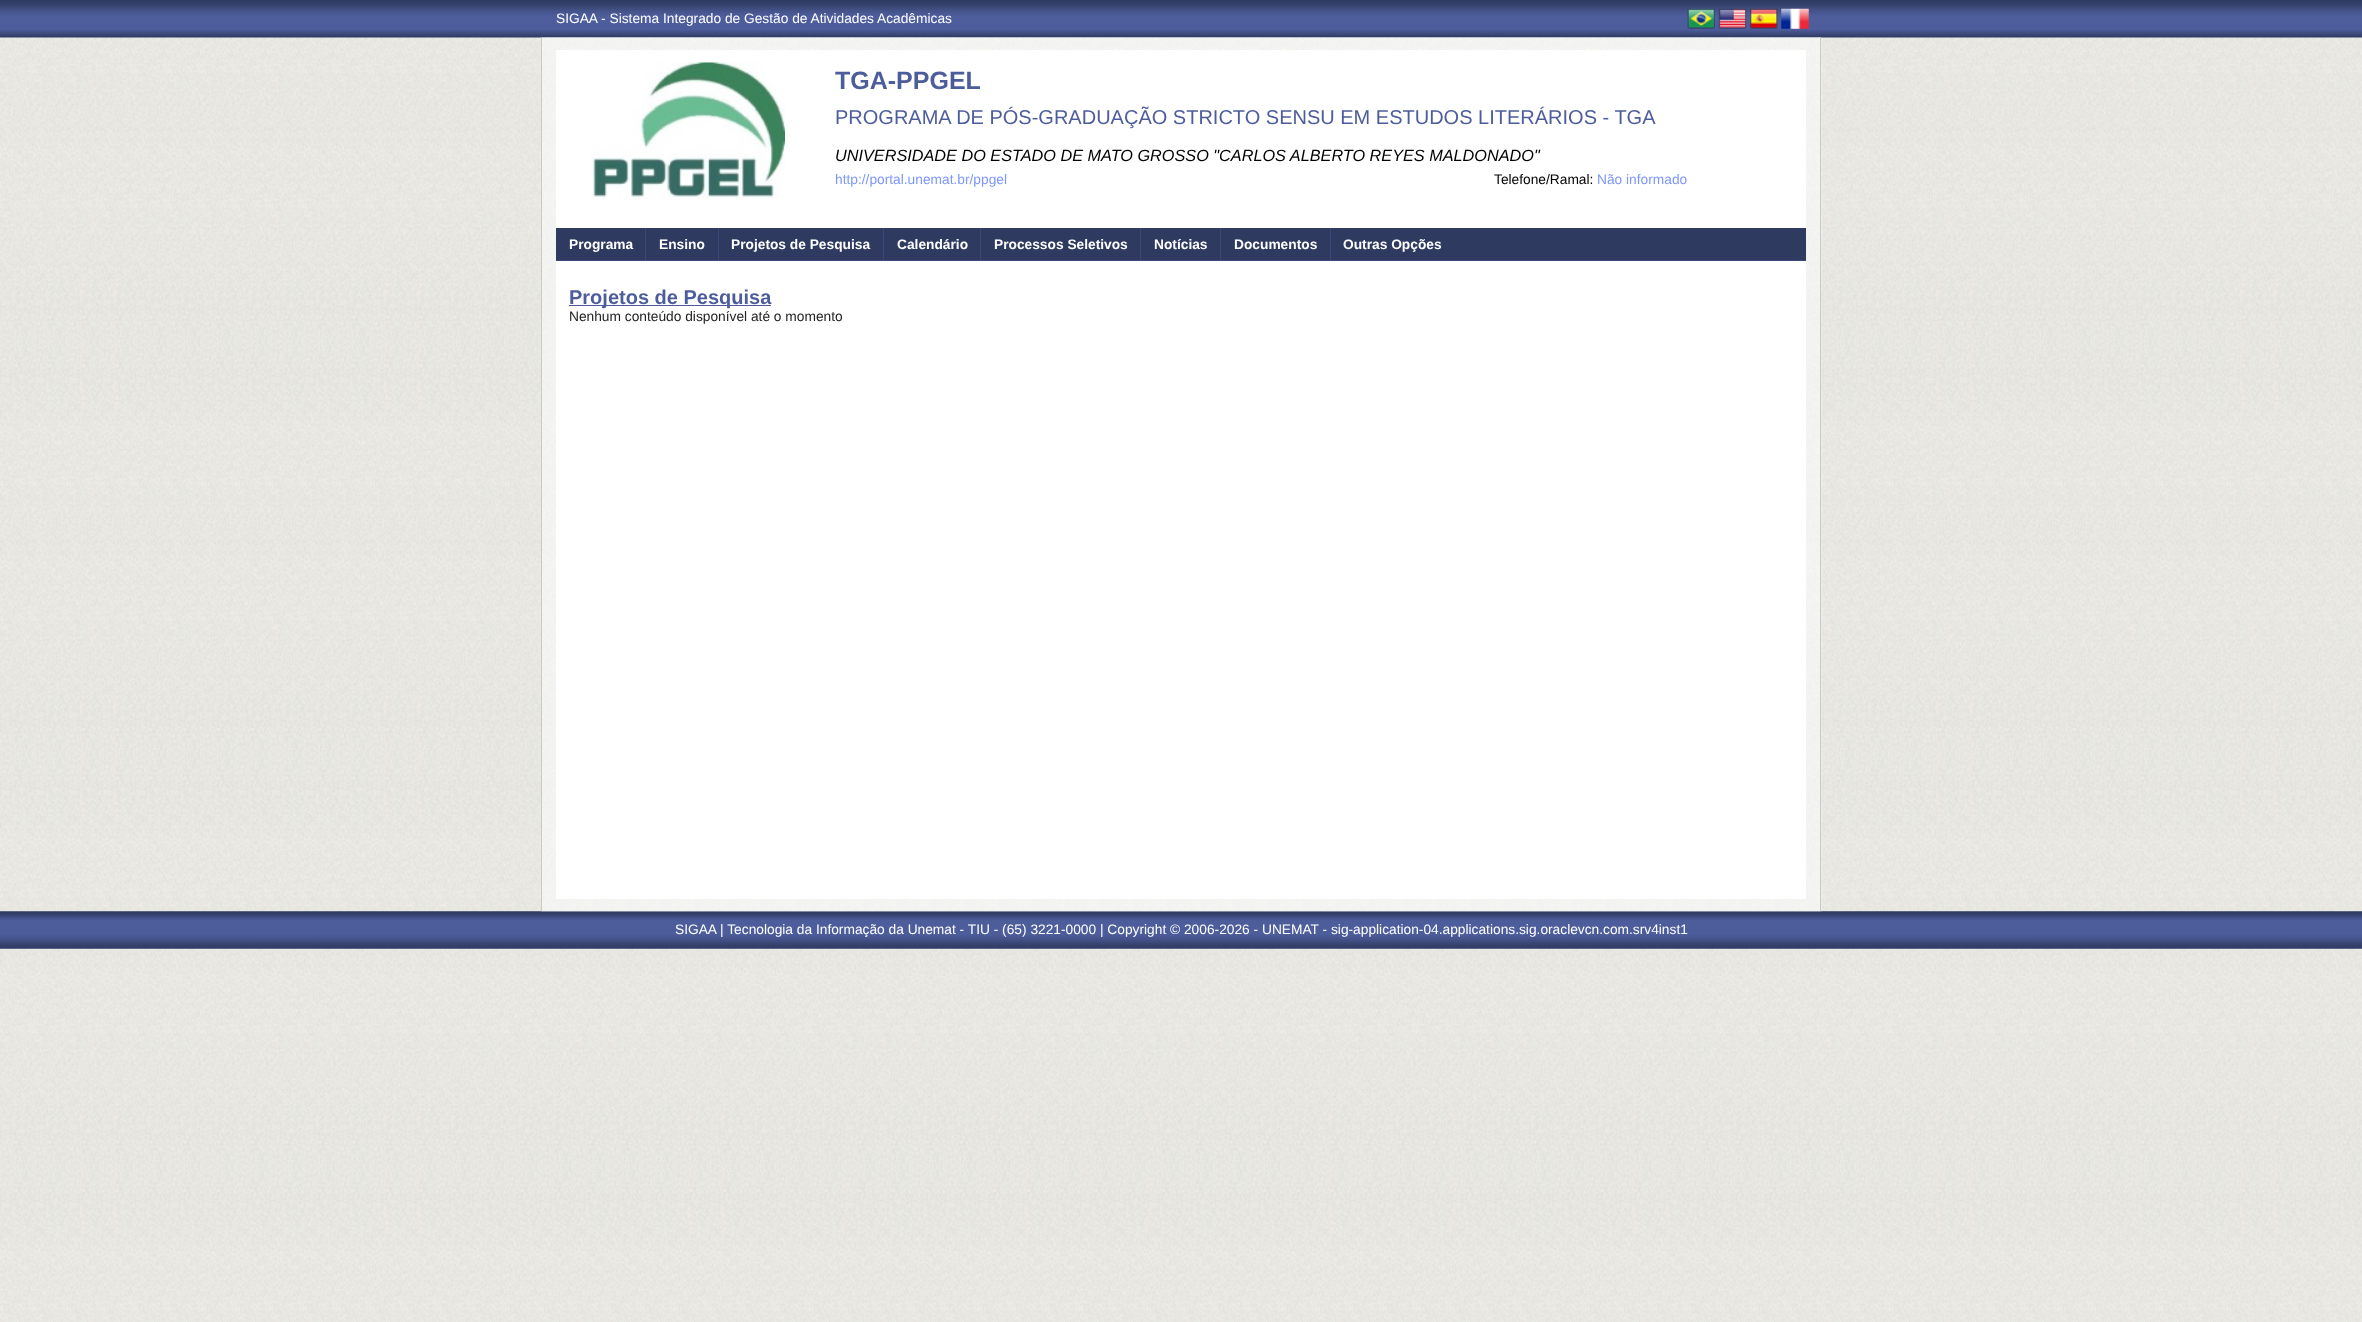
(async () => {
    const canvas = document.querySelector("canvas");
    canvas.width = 2362;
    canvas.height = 1322;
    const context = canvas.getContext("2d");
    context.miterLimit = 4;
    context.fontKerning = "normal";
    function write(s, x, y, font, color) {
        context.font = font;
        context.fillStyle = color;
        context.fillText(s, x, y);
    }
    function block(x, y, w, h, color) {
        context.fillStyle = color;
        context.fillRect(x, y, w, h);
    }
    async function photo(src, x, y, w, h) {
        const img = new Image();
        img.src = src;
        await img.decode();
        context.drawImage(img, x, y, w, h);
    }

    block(0, 0, 2362, 1322, "rgb(255, 255, 255)");
    await photo("media/1.png", 0, 37, 2362, 1285);
    await photo("media/2.png", 0, 0, 2362, 38);
    await photo("media/3.png", 0, 911, 2362, 38);
    write("SIGAA - Sistema Integrado de Gestão de Atividades Acadêmicas", 556, 23, "13.75px Liberation Sans", "rgb(255, 255, 255)");
    await photo("media/4.png", 1687, 8, 28, 21);
    await photo("media/5.png", 1718, 8, 29, 21);
    await photo("media/6.png", 1750, 8, 28, 21);
    await photo("media/7.png", 1781, 8, 28, 21);
    await photo("media/8.png", 541, 37, 1281, 875);
    block(1820, 38, 1, 873, "rgb(202, 202, 199)");
    block(541, 38, 1, 873, "rgb(202, 202, 199)");
    block(556, 50, 1250, 849, "rgb(255, 255, 255)");
    await photo("media/9.png", 591, 62, 194, 138);
    write("TGA-PPGEL", 835, 89, "bold 25px Liberation Sans", "rgb(77, 93, 156)");
    write("PROGRAMA DE PÓS-GRADUAÇÃO STRICTO SENSU EM ESTUDOS LITERÁRIOS - TGA", 835, 124, "20px Liberation Sans", "rgb(77, 93, 156)");
    write("UNIVERSIDADE DO ESTADO DE MATO GROSSO \"CARLOS ALBERTO REYES MALDONADO\"", 835, 161, "italic 16.25px Liberation Sans", "rgb(0, 0, 0)");
    write("http://portal.unemat.br/ppgel", 835, 184, "13.75px Liberation Sans", "rgb(125, 151, 254)");
    write("Telefone/Ramal:", 1494, 184, "13.75px Liberation Sans", "rgb(0, 0, 0)");
    write("Não informado", 1597, 184, "13.75px Liberation Sans", "rgb(125, 151, 254)");
    block(556, 228, 1250, 32, "rgb(47, 58, 96)");
    block(556, 260, 1250, 1, "rgb(59, 72, 120)");
    write("Programa", 569, 249, "bold 13.75px Liberation Sans", "rgb(255, 255, 255)");
    block(645, 228, 1, 33, "rgb(59, 72, 120)");
    write("Ensino", 659, 249, "bold 13.75px Liberation Sans", "rgb(255, 255, 255)");
    block(718, 228, 1, 33, "rgb(59, 72, 120)");
    write("Projetos de Pesquisa", 731, 249, "bold 13.75px Liberation Sans", "rgb(255, 255, 255)");
    block(883, 228, 1, 33, "rgb(59, 72, 120)");
    write("Calendário", 897, 249, "bold 13.75px Liberation Sans", "rgb(255, 255, 255)");
    block(980, 228, 1, 33, "rgb(59, 72, 120)");
    write("Processos Seletivos", 994, 249, "bold 13.75px Liberation Sans", "rgb(255, 255, 255)");
    block(1140, 228, 1, 33, "rgb(59, 72, 120)");
    write("Notícias", 1154, 249, "bold 13.75px Liberation Sans", "rgb(255, 255, 255)");
    block(1220, 228, 1, 33, "rgb(59, 72, 120)");
    write("Documentos", 1234, 249, "bold 13.75px Liberation Sans", "rgb(255, 255, 255)");
    block(1330, 228, 1, 33, "rgb(59, 72, 120)");
    write("Outras Opções", 1343, 249, "bold 13.75px Liberation Sans", "rgb(255, 255, 255)");
    block(569, 305, 202, 1, "rgb(77, 93, 156)");
    write("Projetos de Pesquisa", 569, 304, "bold 20px Liberation Sans", "rgb(77, 93, 156)");
    write("Nenhum conteúdo disponível até o momento", 569, 321, "13.75px Liberation Sans", "rgb(34, 34, 34)");
    write("SIGAA | Tecnologia da Informação da Unemat - TIU - (65) 3221-0000 | Copyright © 2006-2026 - UNEMAT - sig-application-04.applications.sig.oraclevcn.com.srv4inst1", 675, 934, "13.75px Liberation Sans", "rgb(255, 255, 255)");
})();
